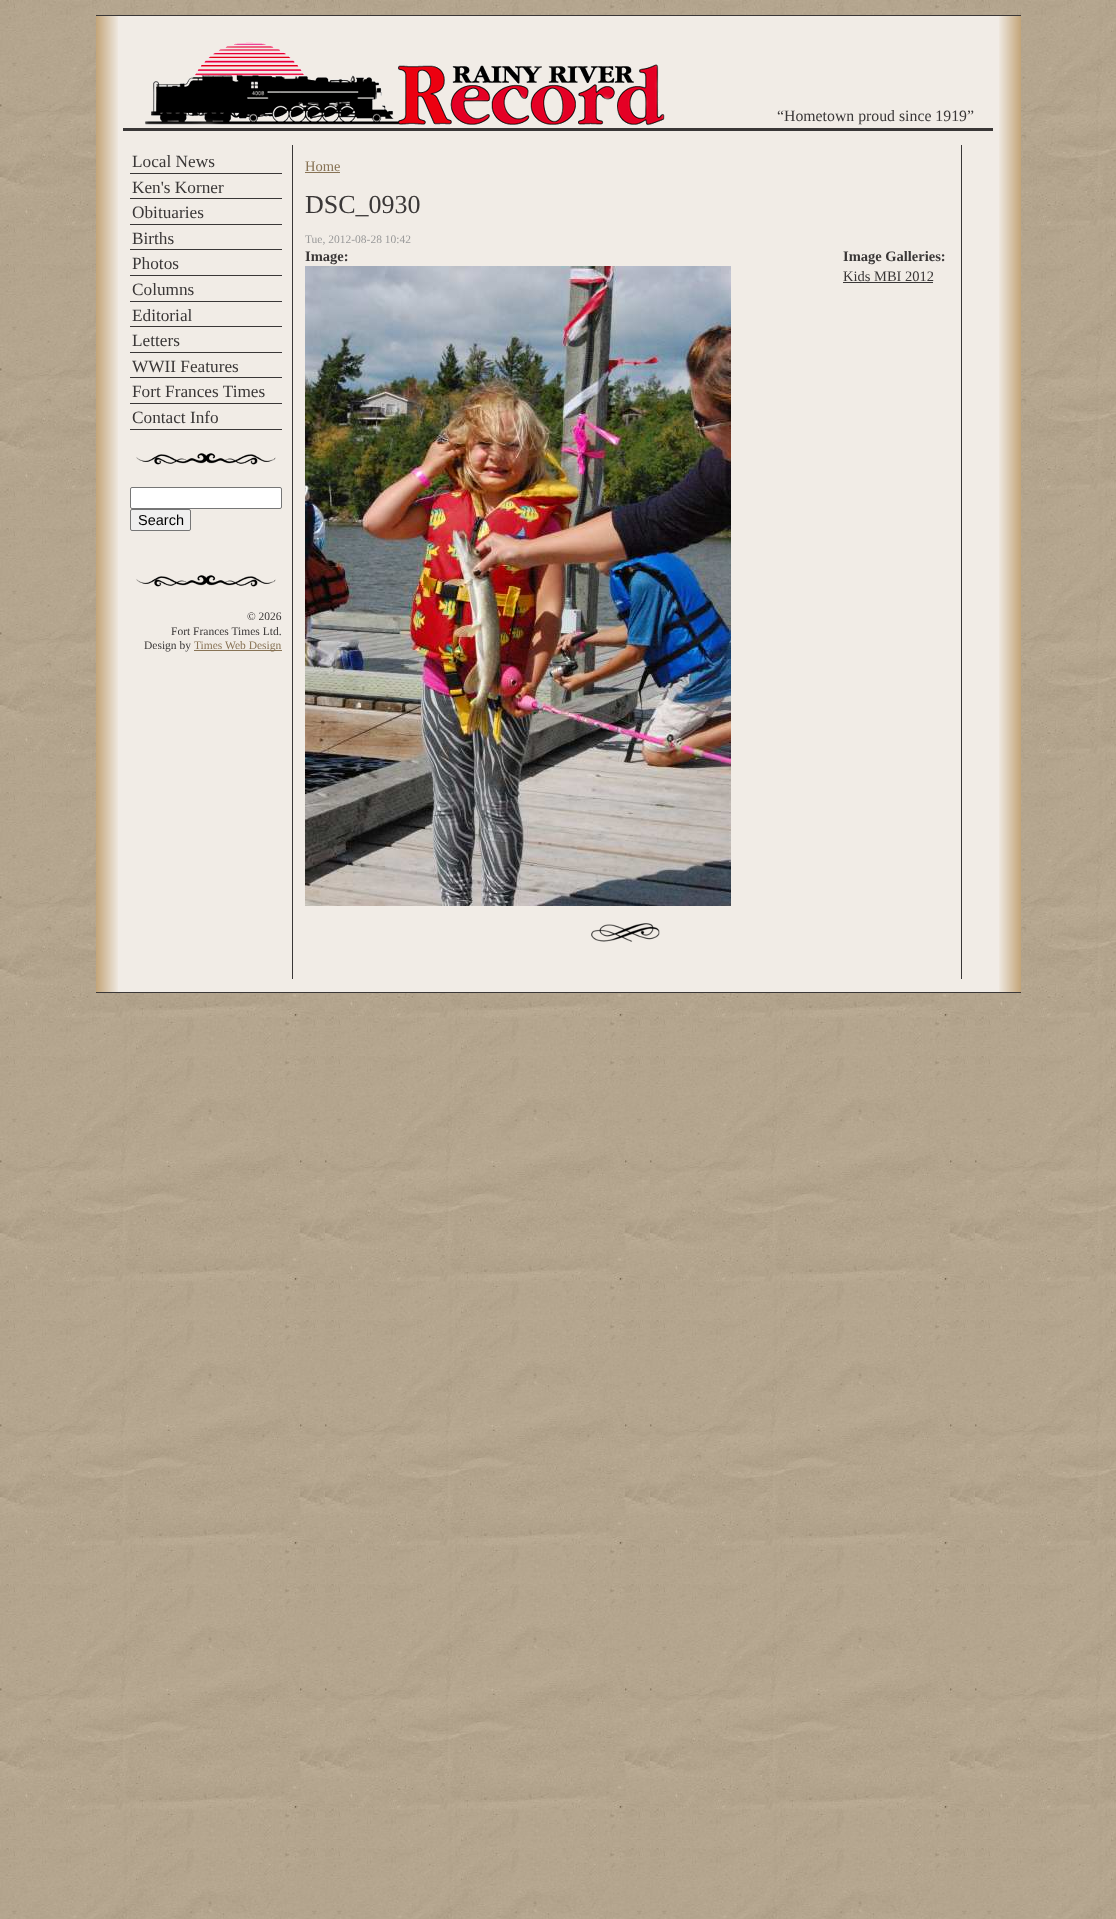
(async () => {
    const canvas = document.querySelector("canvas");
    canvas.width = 1116;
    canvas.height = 1919;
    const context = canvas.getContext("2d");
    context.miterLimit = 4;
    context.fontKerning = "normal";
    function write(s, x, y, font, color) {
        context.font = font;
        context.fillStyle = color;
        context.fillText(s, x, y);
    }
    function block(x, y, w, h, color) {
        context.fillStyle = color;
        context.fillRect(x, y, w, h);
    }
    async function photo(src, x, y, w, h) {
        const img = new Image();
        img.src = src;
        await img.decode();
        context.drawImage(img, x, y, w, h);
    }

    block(0, 0, 1116, 1919, "rgb(255, 255, 255)");
    await photo("media/1.png", 0, 0, 1116, 1919);
    block(118, 16, 881, 976, "rgb(241, 236, 230)");
    block(96, 15, 925, 1, "rgb(58, 55, 55)");
    block(96, 992, 925, 1, "rgb(58, 55, 55)");
    await photo("media/2.png", 96, 16, 22, 976);
    await photo("media/3.png", 999, 16, 22, 976);
    block(123, 128, 870, 3, "rgb(58, 55, 55)");
    await photo("media/4.png", 145, 42, 520, 84);
    write("“Hometown proud since 1919”", 777, 121, "15.8px Liberation Serif", "rgb(58, 55, 55)");
    block(292, 145, 1, 834, "rgb(58, 55, 55)");
    block(130, 173, 152, 1, "rgb(58, 55, 55)");
    write("Local News", 132, 167, "17.25px Liberation Serif", "rgb(58, 55, 55)");
    block(130, 198, 152, 1, "rgb(58, 55, 55)");
    write("Ken's Korner", 132, 193, "17.25px Liberation Serif", "rgb(58, 55, 55)");
    block(130, 224, 152, 1, "rgb(58, 55, 55)");
    write("Obituaries", 132, 218, "17.25px Liberation Serif", "rgb(58, 55, 55)");
    block(130, 249, 152, 1, "rgb(58, 55, 55)");
    write("Births", 132, 244, "17.25px Liberation Serif", "rgb(58, 55, 55)");
    block(130, 275, 152, 1, "rgb(58, 55, 55)");
    write("Photos", 132, 269, "17.25px Liberation Serif", "rgb(58, 55, 55)");
    block(130, 301, 152, 1, "rgb(58, 55, 55)");
    write("Columns", 132, 295, "17.25px Liberation Serif", "rgb(58, 55, 55)");
    block(130, 326, 152, 1, "rgb(58, 55, 55)");
    write("Editorial", 132, 321, "17.25px Liberation Serif", "rgb(58, 55, 55)");
    block(130, 352, 152, 1, "rgb(58, 55, 55)");
    write("Letters", 132, 346, "17.25px Liberation Serif", "rgb(58, 55, 55)");
    block(130, 377, 152, 1, "rgb(58, 55, 55)");
    write("WWII Features", 132, 372, "17.25px Liberation Serif", "rgb(58, 55, 55)");
    block(130, 403, 152, 1, "rgb(58, 55, 55)");
    write("Fort Frances Times", 132, 397, "17.25px Liberation Serif", "rgb(58, 55, 55)");
    block(130, 429, 152, 1, "rgb(58, 55, 55)");
    write("Contact Info", 132, 423, "17.25px Liberation Serif", "rgb(58, 55, 55)");
    await photo("media/5.png", 136, 453, 140, 12);
    context.fillStyle = "rgb(255, 255, 255)";
    context.beginPath();
    context.roundRect(130.5, 487.5, 151, 21, 1.5);
    context.fill();
    context.strokeStyle = "rgb(118, 118, 118)";
    context.stroke();
    context.fillStyle = "rgb(239, 239, 239)";
    context.beginPath();
    context.roundRect(130.5, 509.5, 60, 21, 1.5);
    context.fill();
    context.stroke();
    write("Search", 138, 525, "14.5px Liberation Sans", "rgb(0, 0, 0)");
    await photo("media/5.png", 136, 575, 140, 12);
    write("© 2026", 247, 620, "11.5px Liberation Serif", "rgb(58, 55, 55)");
    write("Fort Frances Times Ltd.", 171, 635, "11.5px Liberation Serif", "rgb(58, 55, 55)");
    write("Design by", 144, 649, "11.5px Liberation Serif", "rgb(58, 55, 55)");
    block(194, 650, 88, 1, "rgb(136, 115, 85)");
    write("Times Web Design", 194, 649, "11.5px Liberation Serif", "rgb(136, 115, 85)");
    write("Home", 305, 171, "14.5px Liberation Serif", "rgb(136, 115, 85)");
    block(305, 172, 35, 1, "rgb(136, 115, 85)");
    write("DSC_0930", 305, 213, "26px Liberation Serif", "rgb(58, 55, 55)");
    await photo("media/6.png", 591, 923, 69, 19);
    write("Tue, 2012-08-28 10:42", 305, 243, "11.5px Liberation Serif", "rgb(153, 153, 153)");
    write("Image:", 305, 261, "bold 14.5px Liberation Serif", "rgb(58, 55, 55)");
    await photo("media/7.png", 305, 266, 426, 640);
    write("Image Galleries:", 843, 261, "bold 14.5px Liberation Serif", "rgb(58, 55, 55)");
    write("Kids MBI 2012", 843, 281, "14.5px Liberation Serif", "rgb(58, 55, 55)");
    block(843, 282, 90, 1, "rgb(58, 55, 55)");
    block(961, 145, 1, 834, "rgb(58, 55, 55)");
})();
